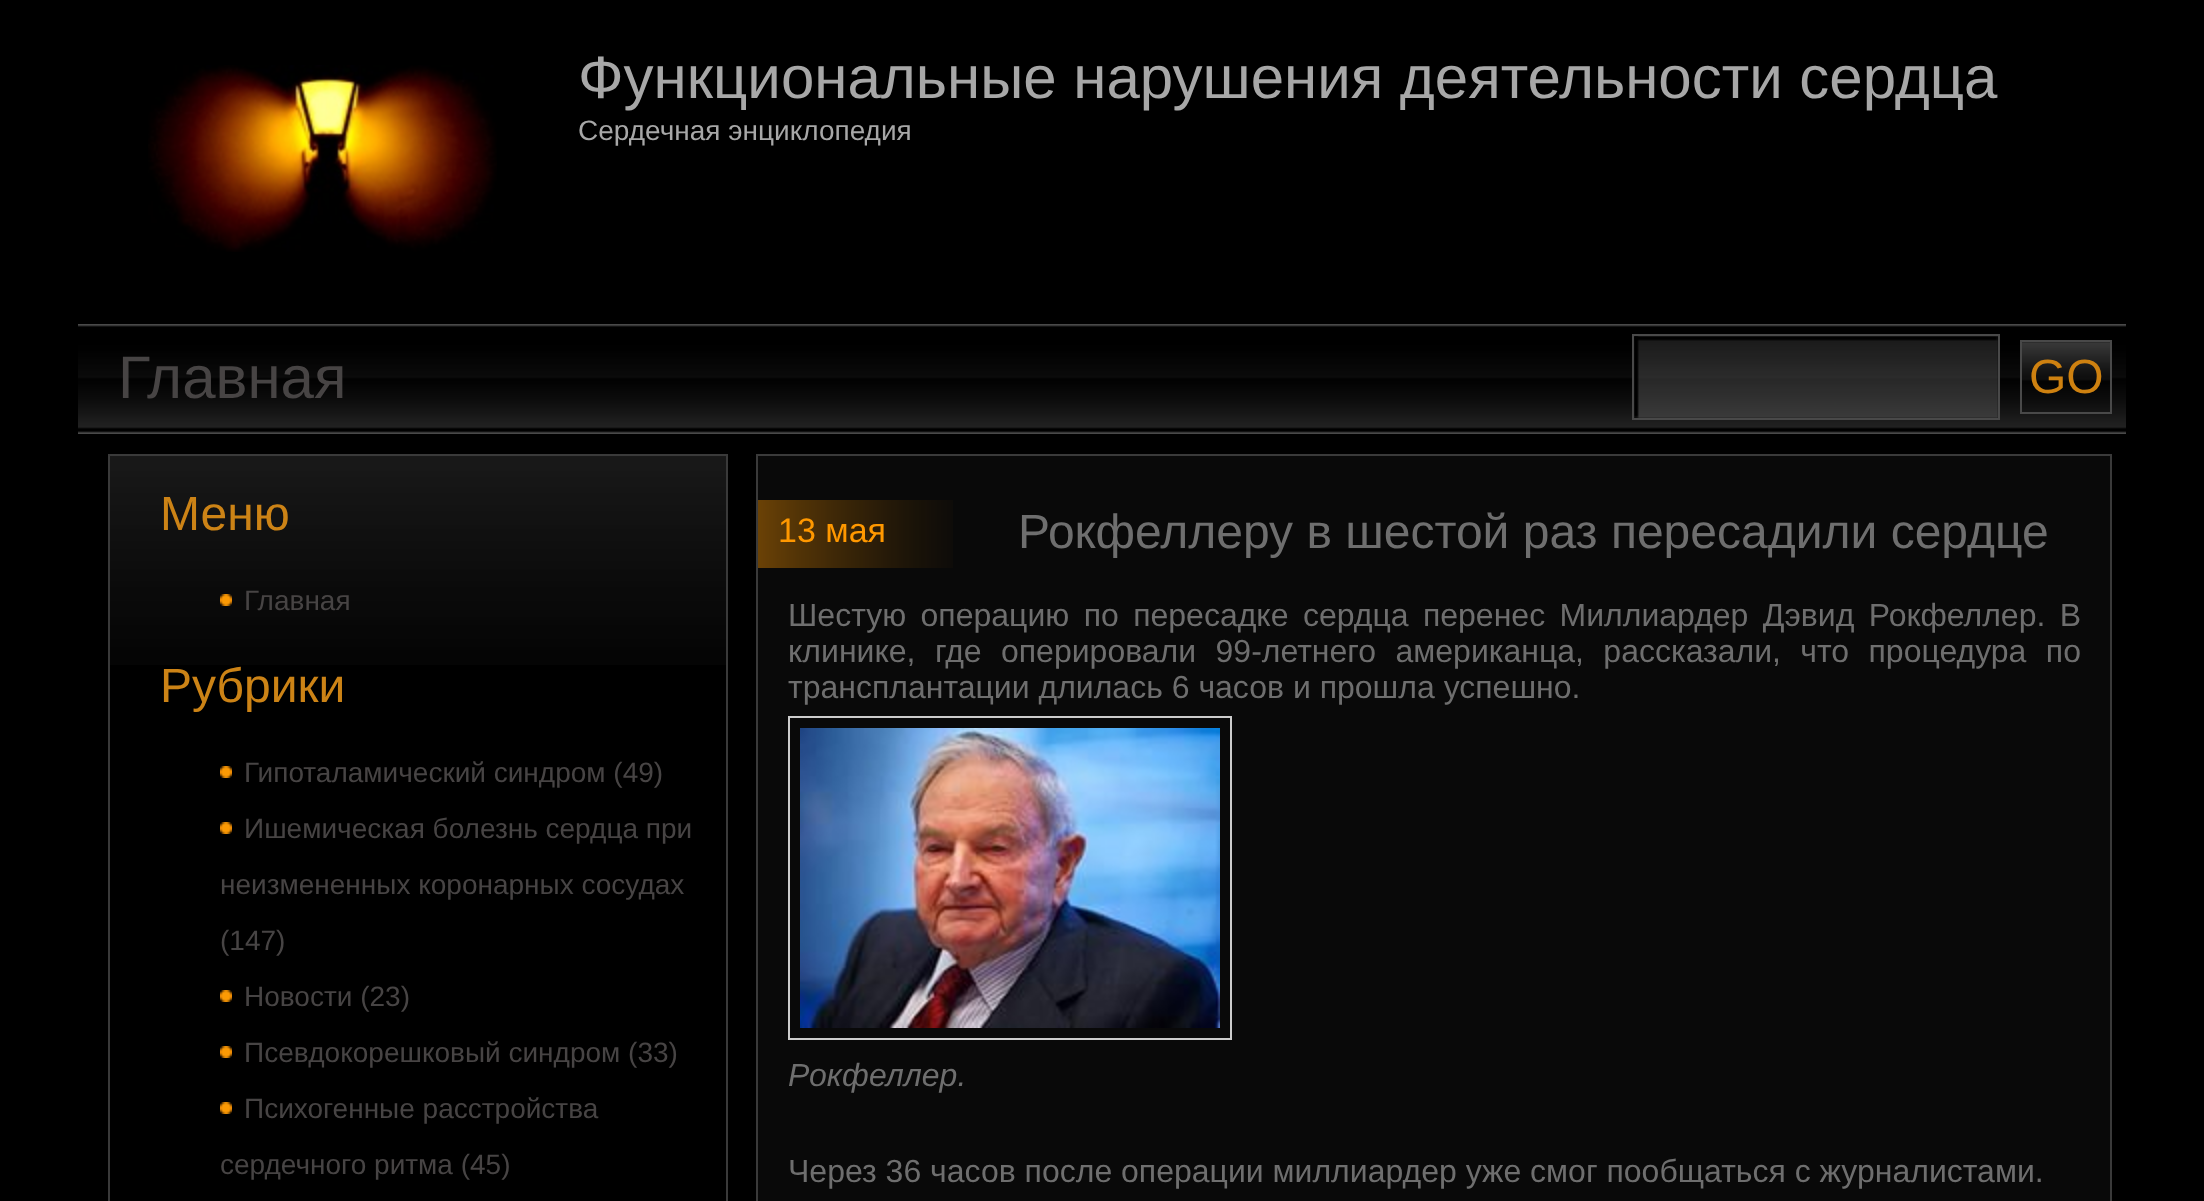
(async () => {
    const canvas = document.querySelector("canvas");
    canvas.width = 2204;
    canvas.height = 1201;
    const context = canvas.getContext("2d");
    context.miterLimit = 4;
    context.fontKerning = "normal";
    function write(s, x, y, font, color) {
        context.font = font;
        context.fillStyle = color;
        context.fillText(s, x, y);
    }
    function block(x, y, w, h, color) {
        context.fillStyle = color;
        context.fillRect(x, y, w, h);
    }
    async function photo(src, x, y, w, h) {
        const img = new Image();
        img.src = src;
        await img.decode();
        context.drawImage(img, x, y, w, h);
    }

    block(0, 0, 2204, 1201, "rgb(0, 0, 0)");
    await photo("media/1.png", 148, 65, 349, 187);
    write("Функциональные нарушения деятельности сердца", 578, 98, "60px Liberation Sans", "rgb(167, 167, 167)");
    write("Сердечная энциклопедия", 578, 140, "28px Liberation Sans", "rgb(167, 167, 167)");
    await photo("media/2.png", 78, 324, 2048, 110);
    write("Главная", 118, 398, "60px Liberation Sans", "rgb(71, 68, 68)");
    await photo("media/3.png", 1634, 336, 364, 82);
    context.strokeStyle = "rgb(73, 73, 73)";
    context.lineWidth = 2;
    context.strokeRect(1633, 335, 366, 84);
    await photo("media/4.png", 2022, 342, 88, 39);
    context.strokeRect(2021, 341, 90, 72);
    write("GO", 2029, 393, "48px Liberation Sans", "rgb(206, 129, 16)");
    await photo("media/5.png", 110, 456, 616, 209);
    context.strokeStyle = "rgb(58, 58, 58)";
    context.strokeRect(109, 455, 618, 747);
    write("Меню", 160, 530, "48px Liberation Sans", "rgb(204, 131, 22)");
    await photo("media/6.png", 220, 594, 12, 12);
    write("Главная", 244, 610, "28px Liberation Sans", "rgb(71, 68, 68)");
    write("Рубрики", 160, 702, "48px Liberation Sans", "rgb(204, 131, 22)");
    await photo("media/7.png", 220, 766, 12, 12);
    write("Гипоталамический синдром (49)", 244, 782, "28px Liberation Sans", "rgb(71, 68, 68)");
    await photo("media/7.png", 220, 822, 12, 12);
    write("Ишемическая болезнь сердца при", 244, 838, "28px Liberation Sans", "rgb(71, 68, 68)");
    write("неизмененных коронарных сосудах", 220, 894, "28px Liberation Sans", "rgb(71, 68, 68)");
    write("(147)", 220, 950, "28px Liberation Sans", "rgb(71, 68, 68)");
    await photo("media/7.png", 220, 990, 12, 12);
    write("Новости (23)", 244, 1006, "28px Liberation Sans", "rgb(71, 68, 68)");
    await photo("media/7.png", 220, 1046, 12, 12);
    write("Псевдокорешковый синдром (33)", 244, 1062, "28px Liberation Sans", "rgb(71, 68, 68)");
    await photo("media/7.png", 220, 1102, 12, 12);
    write("Психогенные расстройства", 244, 1118, "28px Liberation Sans", "rgb(71, 68, 68)");
    write("сердечного ритма (45)", 220, 1174, "28px Liberation Sans", "rgb(71, 68, 68)");
    context.fillStyle = "rgb(9, 9, 9)";
    context.beginPath();
    context.rect(757, 455, 1354, 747);
    context.fill();
    context.stroke();
    await photo("media/8.png", 758, 500, 195, 68);
    write("13 мая", 778, 542, "34px Liberation Sans", "rgb(255, 152, 0)");
    write("Рокфеллеру в шестой раз пересадили сердце", 1018, 548, "48px Liberation Sans", "rgb(110, 110, 110)");
    context.wordSpacing = "5.5px";
    write("Шестую операцию по пересадке сердца перенес Миллиардер Дэвид Рокфеллер. В", 788, 626, "32px Liberation Sans", "rgb(110, 110, 110)");
    context.wordSpacing = "10.5px";
    write("клинике, где оперировали 99-летнего американца, рассказали, что процедура по", 788, 662, "32px Liberation Sans", "rgb(110, 110, 110)");
    context.wordSpacing = "0px";
    write("трансплантации длилась 6 часов и прошла успешно.", 788, 698, "32px Liberation Sans", "rgb(110, 110, 110)");
    context.strokeStyle = "rgb(204, 204, 204)";
    context.strokeRect(789, 717, 442, 322);
    await photo("media/9.png", 800, 728, 420, 300);
    write("Рокфеллер.", 788, 1086, "italic 32px Liberation Sans", "rgb(110, 110, 110)");
    write("Через 36 часов после операции миллиардер уже смог пообщаться с журналистами.", 788, 1182, "32px Liberation Sans", "rgb(110, 110, 110)");
})();
